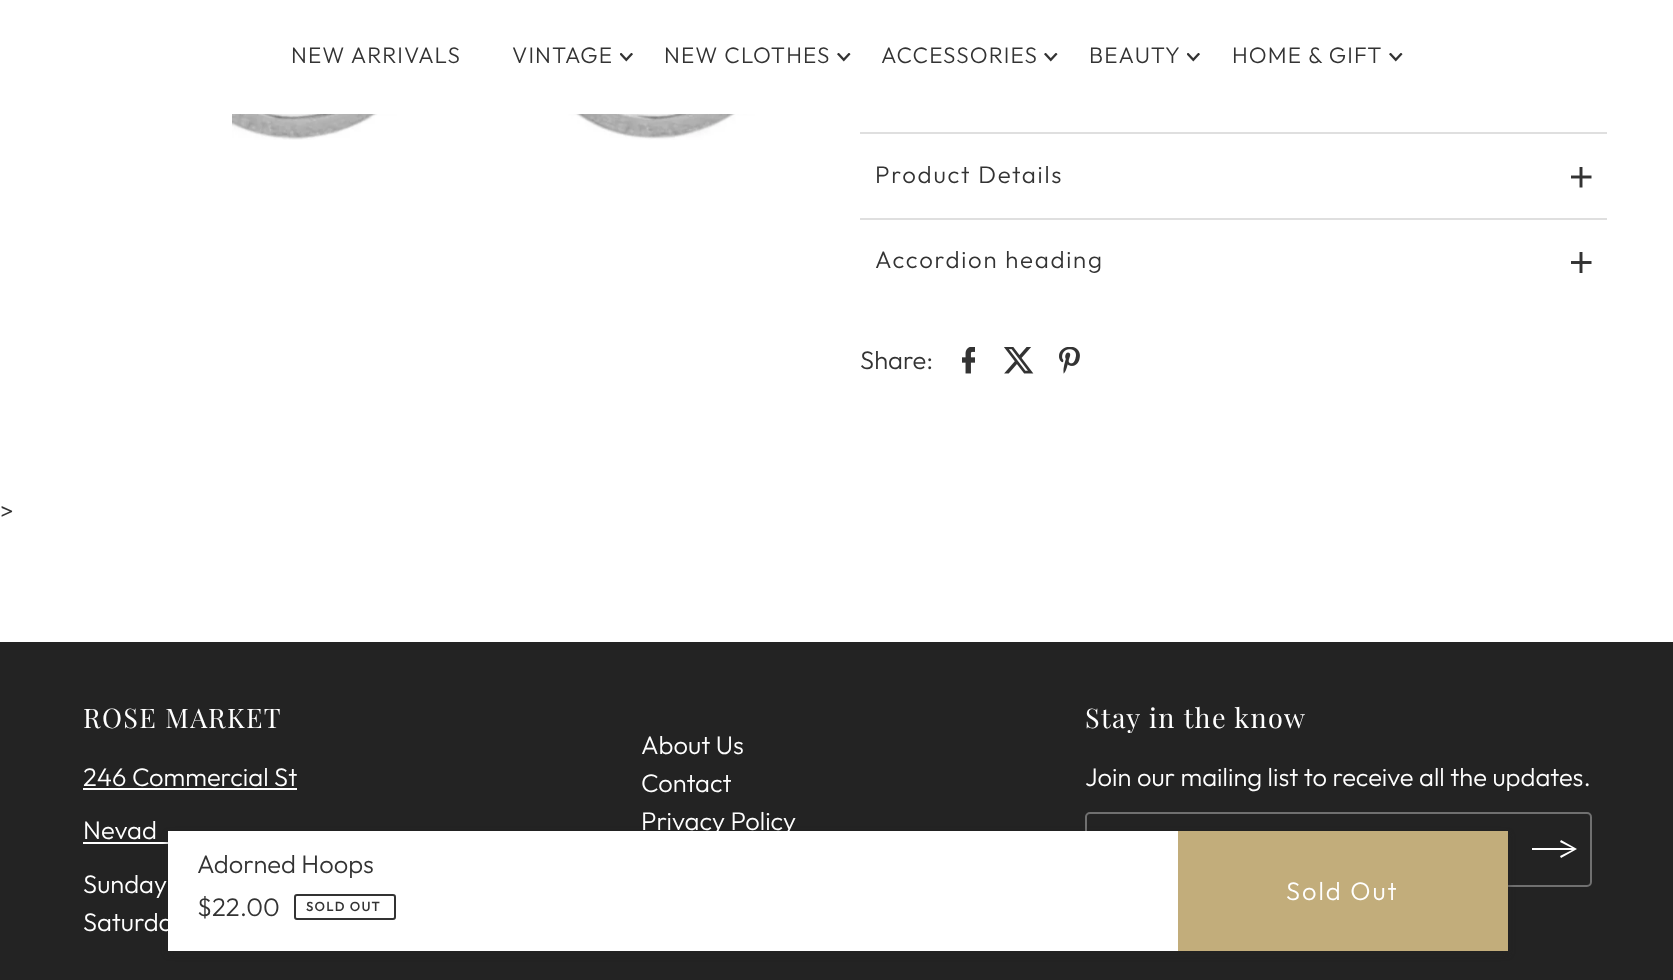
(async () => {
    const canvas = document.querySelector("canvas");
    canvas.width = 1673;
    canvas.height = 980;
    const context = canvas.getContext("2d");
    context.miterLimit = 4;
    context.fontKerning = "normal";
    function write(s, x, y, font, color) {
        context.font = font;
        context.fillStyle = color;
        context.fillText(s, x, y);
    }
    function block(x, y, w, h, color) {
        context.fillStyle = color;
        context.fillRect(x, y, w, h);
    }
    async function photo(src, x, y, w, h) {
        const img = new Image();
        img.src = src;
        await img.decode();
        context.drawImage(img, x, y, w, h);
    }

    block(0, 0, 1673, 980, "rgb(255, 255, 255)");
    context.letterSpacing = "1.1px";
    write("NEW ARRIVALS", 291, 63, "300 22.5px Outfit", "rgb(51, 51, 51)");
    write("VINTAGE", 512, 63, "300 22.5px Outfit", "rgb(51, 51, 51)");
    await photo("media/1.png", 620, 53, 13, 9);
    write("NEW CLOTHES", 664, 63, "300 22.5px Outfit", "rgb(51, 51, 51)");
    await photo("media/2.png", 837, 53, 14, 9);
    write("ACCESSORIES", 881, 63, "300 22.5px Outfit", "rgb(51, 51, 51)");
    await photo("media/2.png", 1044, 53, 14, 9);
    write("BEAUTY", 1089, 63, "300 22.5px Outfit", "rgb(51, 51, 51)");
    await photo("media/1.png", 1187, 53, 13, 9);
    write("HOME & GIFT", 1232, 63, "300 22.5px Outfit", "rgb(51, 51, 51)");
    await photo("media/2.png", 1389, 53, 14, 9);
    context.letterSpacing = "0px";
    write(">", 0, 520, "300 25.5px Outfit", "rgb(51, 51, 51)");
    await photo("media/3.png", 232, 114, 567, 26);
    block(860, 132, 747, 2, "rgb(223, 223, 223)");
    context.letterSpacing = "1.75px";
    write("Product Details", 875, 183, "300 24px Outfit", "rgb(51, 51, 51)");
    await photo("media/4.png", 1571, 167, 21, 21);
    block(860, 218, 747, 2, "rgb(223, 223, 223)");
    write("Accordion heading", 875, 268, "300 24px Outfit", "rgb(51, 51, 51)");
    await photo("media/5.png", 1571, 252, 21, 21);
    context.letterSpacing = "0px";
    write("Share:", 860, 369, "300 25.5px Outfit", "rgb(51, 51, 51)");
    await photo("media/6.png", 962, 347, 13, 27);
    await photo("media/7.png", 1004, 347, 30, 27);
    await photo("media/8.png", 1059, 347, 21, 27);
    block(0, 642, 1673, 338, "rgb(35, 35, 35)");
    block(83, 842, 85, 2, "rgb(255, 255, 255)");
    context.beginPath();
    context.roundRect(1086, 813, 505, 73, 4);
    context.strokeStyle = "rgb(112, 112, 112)";
    context.lineWidth = 2;
    context.stroke();
    context.fillStyle = "rgba(34, 34, 34, 0.5)";
    context.filter = "blur(3px)";
    context.beginPath();
    context.rect(168, 834, 1340, 120);
    context.fill();
    context.filter = "none";
    block(168, 831, 1010, 120, "rgb(255, 255, 255)");
    write("Adorned Hoops", 197, 873, "300 25.5px Outfit", "rgb(51, 51, 51)");
    write("$22.00", 197, 916, "300 25.5px Outfit", "rgb(51, 51, 51)");
    context.beginPath();
    context.roundRect(295, 895, 100, 24, 2);
    context.strokeStyle = "rgb(51, 51, 51)";
    context.stroke();
    context.letterSpacing = "1.5px";
    write("SOLD OUT", 306, 911, "bold 12.75px Outfit", "rgb(51, 51, 51)");
    block(1178, 831, 330, 120, "rgb(194, 173, 123)");
    context.letterSpacing = "2px";
    write("Sold Out", 1286, 900, "300 25.5px Outfit", "rgb(255, 255, 255)");
    context.letterSpacing = "1.4px";
    write("ROSE MARKET", 83, 728, "27px Playfair Display", "rgb(255, 255, 255)");
    context.letterSpacing = "0px";
    write("246 Commercial St", 83, 786, "300 25.5px Outfit", "rgb(255, 255, 255)");
    block(83, 788, 214, 2, "rgb(255, 255, 255)");
    write("Nevad", 83, 839, "300 25.5px Outfit", "rgb(255, 255, 255)");
    write("Sunday", 83, 893, "300 25.5px Outfit", "rgb(255, 255, 255)");
    write("Saturda", 83, 931, "300 25.5px Outfit", "rgb(255, 255, 255)");
    write("About Us", 641, 754, "300 25.5px Outfit", "rgb(255, 255, 255)");
    write("Contact", 641, 792, "300 25.5px Outfit", "rgb(255, 255, 255)");
    write("Privacy Policy", 641, 830, "300 25.5px Outfit", "rgb(255, 255, 255)");
    context.letterSpacing = "1.4px";
    write("Stay in the know", 1085, 728, "27px Playfair Display", "rgb(255, 255, 255)");
    context.letterSpacing = "0px";
    write("Join our mailing list to receive all the updates.", 1085, 786, "300 25.5px Outfit", "rgb(255, 255, 255)");
    context.beginPath();
    context.moveTo(1561, 840);
    context.lineTo(1577, 849);
    context.lineTo(1561, 858);
    context.lineTo(1560, 856);
    context.lineTo(1572, 850);
    context.lineTo(1532, 850);
    context.lineTo(1532, 848);
    context.lineTo(1572, 848);
    context.lineTo(1560, 842);
    context.closePath();
    context.fill();
})();
